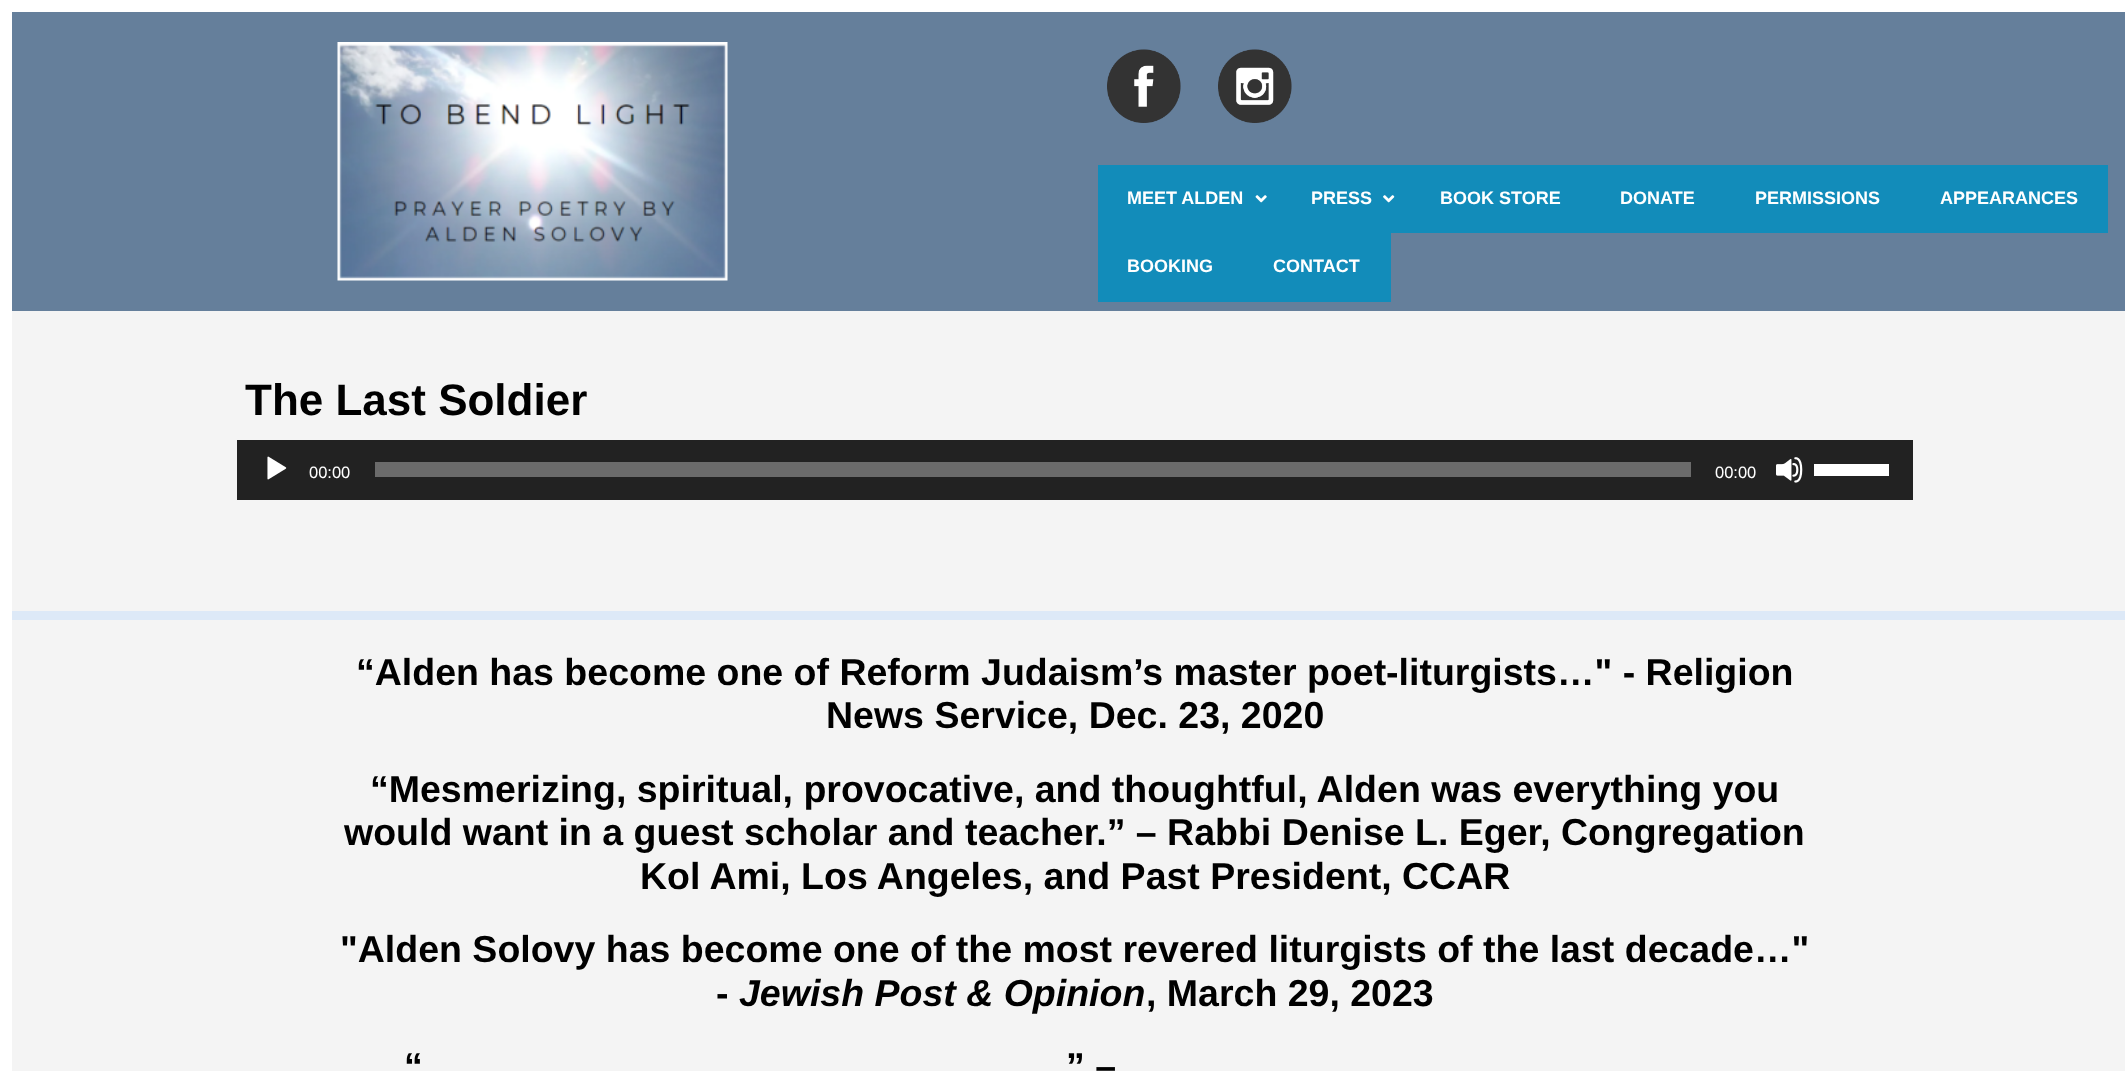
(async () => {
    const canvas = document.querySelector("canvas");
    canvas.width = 2125;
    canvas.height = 1071;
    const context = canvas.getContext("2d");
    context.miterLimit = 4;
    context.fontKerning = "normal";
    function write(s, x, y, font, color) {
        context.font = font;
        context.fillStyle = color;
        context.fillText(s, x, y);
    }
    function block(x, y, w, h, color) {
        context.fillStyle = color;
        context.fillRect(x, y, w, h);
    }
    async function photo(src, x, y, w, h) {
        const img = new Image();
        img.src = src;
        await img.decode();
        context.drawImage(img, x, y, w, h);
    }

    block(0, 0, 2125, 1071, "rgb(255, 255, 255)");
    block(12, 12, 2113, 299, "rgb(101, 127, 155)");
    await photo("media/1.png", 337, 42, 391, 239);
    await photo("media/2.png", 1107, 49, 74, 74);
    await photo("media/3.png", 1218, 49, 74, 74);
    block(1098, 165, 1010, 68, "rgb(18, 140, 186)");
    write("MEET ALDEN", 1127, 204, "bold 18px Liberation Sans", "rgb(255, 255, 255)");
    await photo("media/4.png", 1255, 195, 12, 8);
    write("PRESS", 1311, 204, "bold 18px Liberation Sans", "rgb(255, 255, 255)");
    await photo("media/5.png", 1383, 195, 12, 8);
    write("BOOK STORE", 1440, 204, "bold 18px Liberation Sans", "rgb(255, 255, 255)");
    write("DONATE", 1620, 204, "bold 18px Liberation Sans", "rgb(255, 255, 255)");
    write("PERMISSIONS", 1755, 204, "bold 18px Liberation Sans", "rgb(255, 255, 255)");
    write("APPEARANCES", 1940, 204, "bold 18px Liberation Sans", "rgb(255, 255, 255)");
    block(1098, 233, 293, 69, "rgb(18, 140, 186)");
    write("BOOKING", 1127, 272, "bold 18px Liberation Sans", "rgb(255, 255, 255)");
    write("CONTACT", 1273, 272, "bold 18px Liberation Sans", "rgb(255, 255, 255)");
    block(12, 311, 2113, 300, "rgb(244, 244, 244)");
    write("The Last Soldier", 245, 415, "bold 44px Liberation Sans", "rgb(0, 0, 0)");
    block(237, 440, 1676, 60, "rgb(34, 34, 34)");
    await photo("media/6.png", 267, 456, 20, 24);
    write("00:00", 309, 478, "16.5px Liberation Sans", "rgb(255, 255, 255)");
    block(375, 462, 1316, 15, "rgb(107, 107, 107)");
    write("00:00", 1715, 478, "16.5px Liberation Sans", "rgb(255, 255, 255)");
    await photo("media/7.png", 1776, 457, 27, 26);
    block(1814, 464, 75, 12, "rgb(255, 255, 255)");
    block(12, 620, 2113, 451, "rgb(244, 244, 244)");
    block(12, 611, 2113, 9, "rgb(221, 233, 247)");
    write("“Alden has become one of Reform Judaism’s master poet-liturgists…\" - Religion", 356, 685, "bold 37.5px Liberation Sans", "rgb(0, 0, 0)");
    write("News Service, Dec. 23, 2020", 826, 728, "bold 37.5px Liberation Sans", "rgb(0, 0, 0)");
    write("“Mesmerizing, spiritual, provocative, and thoughtful, Alden was everything you", 370, 802, "bold 37.5px Liberation Sans", "rgb(0, 0, 0)");
    write("would want in a guest scholar and teacher.” – Rabbi Denise L. Eger, Congregation", 344, 845, "bold 37.5px Liberation Sans", "rgb(0, 0, 0)");
    write("Kol Ami, Los Angeles, and Past President, CCAR", 640, 889, "bold 37.5px Liberation Sans", "rgb(0, 0, 0)");
    write("\"Alden Solovy has become one of the most revered liturgists of the last decade…\"", 340, 962, "bold 37.5px Liberation Sans", "rgb(0, 0, 0)");
    write("-", 716, 1006, "bold 37.5px Liberation Sans", "rgb(0, 0, 0)");
    write("Jewish Post & Opinion", 739, 1006, "italic bold 37.5px Liberation Sans", "rgb(0, 0, 0)");
    write(", March 29, 2023", 1146, 1006, "bold 37.5px Liberation Sans", "rgb(0, 0, 0)");
    write("“", 404, 1079, "bold 37.5px Liberation Sans", "rgb(0, 0, 0)");
    write("” –", 1066, 1079, "bold 37.5px Liberation Sans", "rgb(0, 0, 0)");
})();
